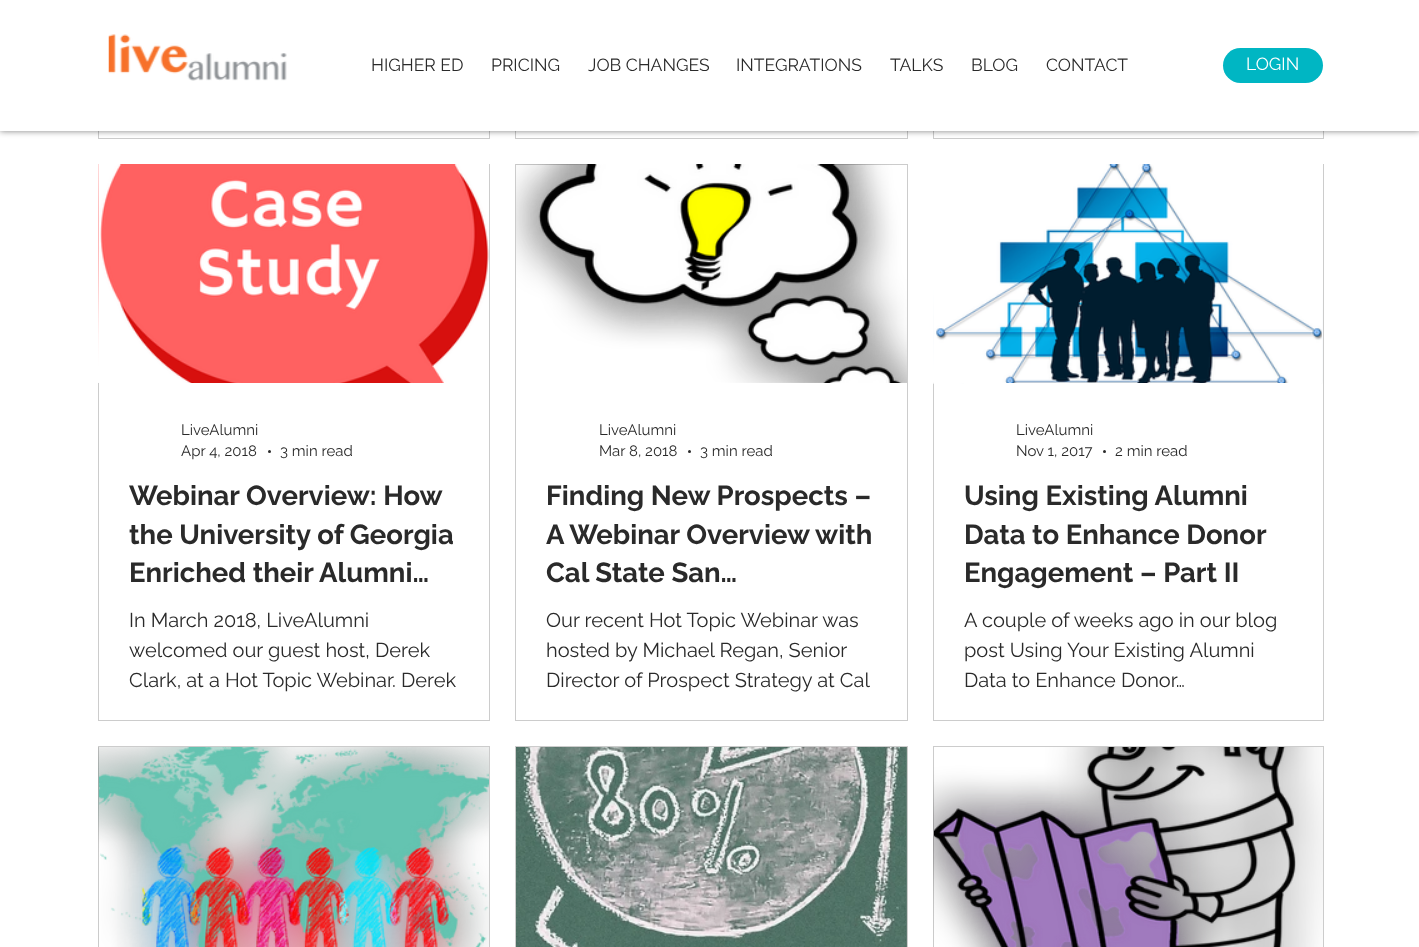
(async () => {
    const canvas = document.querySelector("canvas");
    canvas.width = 1419;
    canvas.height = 947;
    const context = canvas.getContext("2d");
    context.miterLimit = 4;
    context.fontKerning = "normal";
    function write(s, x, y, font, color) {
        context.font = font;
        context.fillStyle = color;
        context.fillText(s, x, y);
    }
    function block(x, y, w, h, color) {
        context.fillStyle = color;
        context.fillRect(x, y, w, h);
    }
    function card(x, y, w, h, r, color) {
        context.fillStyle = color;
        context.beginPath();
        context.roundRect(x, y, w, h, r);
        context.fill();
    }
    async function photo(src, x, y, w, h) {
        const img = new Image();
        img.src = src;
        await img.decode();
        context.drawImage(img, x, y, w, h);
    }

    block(0, 0, 1419, 947, "rgb(255, 255, 255)");
    context.strokeStyle = "rgb(204, 204, 204)";
    context.strokeRect(98.5, -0.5, 391, 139);
    context.strokeRect(515.5, -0.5, 392, 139);
    context.strokeRect(933.5, -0.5, 390, 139);
    context.fillStyle = "rgba(0, 0, 0, 0.5)";
    context.filter = "blur(3px)";
    context.beginPath();
    context.rect(0, 0, 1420, 131);
    context.fill();
    context.filter = "none";
    block(0, 0, 1419, 131, "rgb(255, 255, 255)");
    await photo("media/1.png", 108, 34, 179, 47);
    write("HIGHER ED", 371, 71, "17.5px Raleway", "rgb(42, 42, 42)");
    write("PRICING", 491, 71, "17.5px Raleway", "rgb(42, 42, 42)");
    write("JOB CHANGES", 588, 71, "17.5px Raleway", "rgb(42, 42, 42)");
    write("INTEGRATIONS", 736, 71, "17.5px Raleway", "rgb(42, 42, 42)");
    write("TALKS", 890, 71, "17.5px Raleway", "rgb(42, 42, 42)");
    write("BLOG", 971, 71, "17.5px Raleway", "rgb(42, 42, 42)");
    write("CONTACT", 1046, 71, "17.5px Raleway", "rgb(42, 42, 42)");
    card(1223, 48, 100, 35, 17.5, "rgb(0, 182, 195)");
    write("LOGIN", 1246, 70, "17.5px Raleway", "rgb(255, 255, 255)");
    context.strokeRect(98.5, 164.5, 391, 556);
    await photo("media/2.png", 98, 164, 1, 219);
    await photo("media/3.png", 99, 164, 390, 219);
    write("LiveAlumni", 181, 435, "15px Raleway", "rgb(42, 42, 42)");
    write("Apr 4, 2018", 181, 456, "15px Raleway", "rgb(42, 42, 42)");
    context.beginPath();
    context.arc(269.5, 451.5, 1.5, 0, Math.PI * 2);
    context.fill();
    write("3 min read", 280, 456, "15px Raleway", "rgb(42, 42, 42)");
    write("Webinar Overview: How", 129, 505, "bold 27.5px Raleway", "rgb(42, 42, 42)");
    write("the University of Georgia", 129, 544, "bold 27.5px Raleway", "rgb(42, 42, 42)");
    write("Enriched their Alumni…", 129, 582, "bold 27.5px Raleway", "rgb(42, 42, 42)");
    write("In March 2018, LiveAlumni", 129, 627, "20px Raleway", "rgb(42, 42, 42)");
    write("welcomed our guest host, Derek", 129, 657, "20px Raleway", "rgb(42, 42, 42)");
    write("Clark, at a Hot Topic Webinar. Derek", 129, 687, "20px Raleway", "rgb(42, 42, 42)");
    context.strokeRect(515.5, 164.5, 392, 556);
    await photo("media/4.png", 516, 164, 391, 219);
    await photo("media/5.png", 538, 164, 364, 219);
    write("LiveAlumni", 599, 435, "15px Raleway", "rgb(42, 42, 42)");
    write("Mar 8, 2018", 599, 456, "15px Raleway", "rgb(42, 42, 42)");
    context.beginPath();
    context.arc(689.5, 451.5, 1.5, 0, Math.PI * 2);
    context.fill();
    write("3 min read", 700, 456, "15px Raleway", "rgb(42, 42, 42)");
    write("Finding New Prospects –", 546, 505, "bold 27.5px Raleway", "rgb(42, 42, 42)");
    write("A Webinar Overview with", 546, 544, "bold 27.5px Raleway", "rgb(42, 42, 42)");
    write("Cal State San…", 546, 582, "bold 27.5px Raleway", "rgb(42, 42, 42)");
    write("Our recent Hot Topic Webinar was", 546, 627, "20px Raleway", "rgb(42, 42, 42)");
    write("hosted by Michael Regan, Senior", 546, 657, "20px Raleway", "rgb(42, 42, 42)");
    write("Director of Prospect Strategy at Cal", 546, 687, "20px Raleway", "rgb(42, 42, 42)");
    context.strokeRect(933.5, 164.5, 390, 556);
    await photo("media/6.png", 933, 164, 390, 220);
    await photo("media/7.png", 934, 164, 388, 219);
    block(964, 383, 357, 1, "rgb(255, 255, 255)");
    write("LiveAlumni", 1016, 435, "15px Raleway", "rgb(42, 42, 42)");
    write("Nov 1, 2017", 1016, 456, "15px Raleway", "rgb(42, 42, 42)");
    context.beginPath();
    context.arc(1104.5, 451.5, 1.5, 0, Math.PI * 2);
    context.fill();
    write("2 min read", 1115, 456, "15px Raleway", "rgb(42, 42, 42)");
    write("Using Existing Alumni", 964, 505, "bold 27.5px Raleway", "rgb(42, 42, 42)");
    write("Data to Enhance Donor", 964, 544, "bold 27.5px Raleway", "rgb(42, 42, 42)");
    write("Engagement – Part II", 964, 582, "bold 27.5px Raleway", "rgb(42, 42, 42)");
    write("A couple of weeks ago in our blog", 964, 627, "20px Raleway", "rgb(42, 42, 42)");
    write("post Using Your Existing Alumni", 964, 657, "20px Raleway", "rgb(42, 42, 42)");
    write("Data to Enhance Donor…", 964, 687, "20px Raleway", "rgb(42, 42, 42)");
    context.strokeRect(98.5, 746.5, 391, 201);
    await photo("media/8.png", 98, 747, 391, 200);
    await photo("media/9.png", 99, 747, 390, 200);
    context.strokeRect(515.5, 746.5, 392, 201);
    await photo("media/10.png", 516, 747, 390, 200);
    await photo("media/11.png", 906, 747, 1, 200);
    context.strokeRect(933.5, 746.5, 390, 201);
    await photo("media/12.png", 933, 747, 390, 200);
    await photo("media/13.png", 934, 747, 362, 200);
})();
